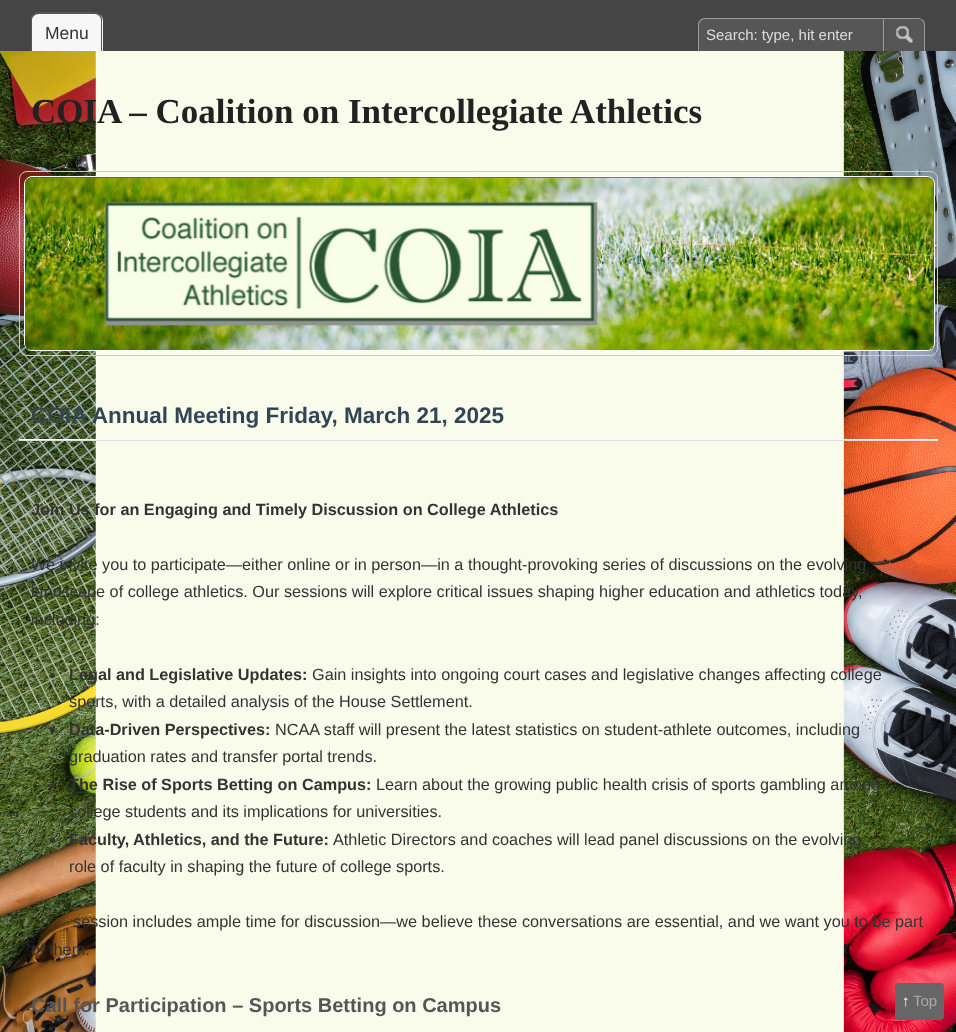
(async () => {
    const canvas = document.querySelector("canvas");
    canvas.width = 956;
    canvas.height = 1032;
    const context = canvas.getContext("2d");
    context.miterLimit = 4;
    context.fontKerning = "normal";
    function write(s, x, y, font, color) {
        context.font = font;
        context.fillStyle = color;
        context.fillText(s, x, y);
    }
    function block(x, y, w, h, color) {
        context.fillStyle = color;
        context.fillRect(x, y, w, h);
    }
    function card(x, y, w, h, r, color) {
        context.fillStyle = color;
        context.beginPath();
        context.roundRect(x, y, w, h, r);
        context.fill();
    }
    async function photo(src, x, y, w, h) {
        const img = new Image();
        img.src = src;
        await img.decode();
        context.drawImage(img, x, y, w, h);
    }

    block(0, 0, 956, 1032, "rgb(255, 255, 255)");
    await photo("media/1.png", 0, 51, 956, 981);
    block(0, 0, 956, 51, "rgb(69, 69, 70)");
    context.fillStyle = "rgb(247, 247, 247)";
    context.beginPath();
    context.roundRect(31, 13, 72, 38, [8, 8, 0, 0]);
    context.fill();
    context.fillStyle = "rgb(85, 85, 85)";
    context.beginPath();
    context.moveTo(39, 12);
    context.lineTo(95, 12);
    context.bezierCurveTo(99, 12, 102, 16, 102, 20);
    context.lineTo(102, 51);
    context.lineTo(31, 51);
    context.lineTo(31, 20);
    context.bezierCurveTo(31, 16, 35, 12, 39, 12);
    context.closePath();
    context.moveTo(39, 14);
    context.lineTo(95, 14);
    context.bezierCurveTo(98, 14, 101, 17, 101, 20);
    context.lineTo(101, 51);
    context.lineTo(32, 51);
    context.lineTo(32, 20);
    context.bezierCurveTo(32, 17, 35, 14, 39, 14);
    context.closePath();
    context.fill("evenodd");
    write("Menu", 45, 39, "17.5px Liberation Sans", "rgb(51, 51, 51)");
    context.fillStyle = "rgb(86, 86, 87)";
    context.beginPath();
    context.roundRect(698, 18, 227, 33, [8, 8, 0, 0]);
    context.fill();
    context.fillStyle = "rgb(153, 153, 153)";
    context.beginPath();
    context.moveTo(705, 18);
    context.lineTo(918, 18);
    context.bezierCurveTo(922, 18, 925, 21, 925, 25);
    context.lineTo(925, 51);
    context.lineTo(698, 51);
    context.lineTo(698, 25);
    context.bezierCurveTo(698, 21, 701, 18, 705, 18);
    context.closePath();
    context.moveTo(705, 19);
    context.lineTo(918, 19);
    context.bezierCurveTo(921, 19, 924, 22, 924, 25);
    context.lineTo(924, 51);
    context.lineTo(699, 51);
    context.lineTo(699, 25);
    context.bezierCurveTo(699, 22, 702, 19, 705, 19);
    context.closePath();
    context.fill("evenodd");
    write("Search: type, hit enter", 706, 40, "15px Liberation Sans", "rgb(221, 221, 221)");
    block(918, 19, 3, 1, "rgb(86, 86, 87)");
    await photo("media/2.png", 896, 26, 17, 17);
    block(883, 19, 1, 32, "rgb(153, 153, 153)");
    write("COIA – Coalition on Intercollegiate Athletics", 31, 123, "bold 35px Liberation Serif", "rgb(34, 34, 34)");
    context.beginPath();
    context.roundRect(19.5, 171.5, 918, 184, 7.5);
    context.strokeStyle = "rgb(204, 204, 204)";
    context.stroke();
    context.fillStyle = "rgb(86, 86, 87)";
    context.beginPath();
    context.roundRect(24.5, 176.5, 910, 174, 7.5);
    context.fill();
    context.strokeStyle = "rgb(255, 255, 255)";
    context.stroke();
    await photo("media/3.png", 25, 177, 909, 173);
    block(19, 439, 919, 1, "rgb(250, 250, 250)");
    write("COIA Annual Meeting Friday, March 21, 2025", 31, 423, "bold 22.5px Liberation Sans", "rgb(51, 68, 85)");
    block(19, 440, 919, 1, "rgb(221, 221, 221)");
    write("Join Us for an Engaging and Timely Discussion on College Athletics", 31, 515, "bold 16.25px Liberation Sans", "rgb(51, 51, 51)");
    write("We invite you to participate—either online or in person—in a thought-provoking series of discussions on the evolving", 31, 570, "16.25px Liberation Sans", "rgb(51, 51, 51)");
    write("landscape of college athletics. Our sessions will explore critical issues shaping higher education and athletics today,", 31, 597, "16.25px Liberation Sans", "rgb(51, 51, 51)");
    write("including:", 31, 625, "16.25px Liberation Sans", "rgb(51, 51, 51)");
    context.beginPath();
    context.arc(52.5, 675.5, 2.5, 0, Math.PI * 2);
    context.fill();
    write("Legal and Legislative Updates:", 69, 680, "bold 16.25px Liberation Sans", "rgb(51, 51, 51)");
    write("Gain insights into ongoing court cases and legislative changes affecting college", 312, 680, "16.25px Liberation Sans", "rgb(51, 51, 51)");
    write("sports, with a detailed analysis of the House Settlement.", 69, 707, "16.25px Liberation Sans", "rgb(51, 51, 51)");
    context.beginPath();
    context.arc(52.5, 730.5, 2.5, 0, Math.PI * 2);
    context.fill();
    write("Data-Driven Perspectives:", 69, 735, "bold 16.25px Liberation Sans", "rgb(51, 51, 51)");
    write("NCAA staff will present the latest statistics on student-athlete outcomes, including", 275, 735, "16.25px Liberation Sans", "rgb(51, 51, 51)");
    write("graduation rates and transfer portal trends.", 69, 762, "16.25px Liberation Sans", "rgb(51, 51, 51)");
    context.beginPath();
    context.arc(52.5, 785.5, 2.5, 0, Math.PI * 2);
    context.fill();
    write("The Rise of Sports Betting on Campus:", 69, 790, "bold 16.25px Liberation Sans", "rgb(51, 51, 51)");
    write("Learn about the growing public health crisis of sports gambling among", 376, 790, "16.25px Liberation Sans", "rgb(51, 51, 51)");
    write("college students and its implications for universities.", 69, 817, "16.25px Liberation Sans", "rgb(51, 51, 51)");
    context.beginPath();
    context.arc(52.5, 840.5, 2.5, 0, Math.PI * 2);
    context.fill();
    write("Faculty, Athletics, and the Future:", 69, 845, "bold 16.25px Liberation Sans", "rgb(51, 51, 51)");
    write("Athletic Directors and coaches will lead panel discussions on the evolving", 333, 845, "16.25px Liberation Sans", "rgb(51, 51, 51)");
    write("role of faculty in shaping the future of college sports.", 69, 872, "16.25px Liberation Sans", "rgb(51, 51, 51)");
    write("session includes ample time for discussion—we believe these conversations are essential, and we want you to be part", 73, 927, "16.25px Liberation Sans", "rgb(51, 51, 51)");
    write("of them.", 31, 955, "16.25px Liberation Sans", "rgb(51, 51, 51)");
    write("Call for Participation – Sports Betting on Campus", 31, 1012, "bold 20px Liberation Sans", "rgb(85, 85, 85)");
    card(895, 983, 49, 37, 4, "rgb(102, 102, 102)");
    write("↑", 902, 1006, "bold 15px Liberation Sans", "rgb(250, 250, 250)");
    write("Top", 913, 1006, "15px Liberation Sans", "rgb(170, 170, 170)");
})();
